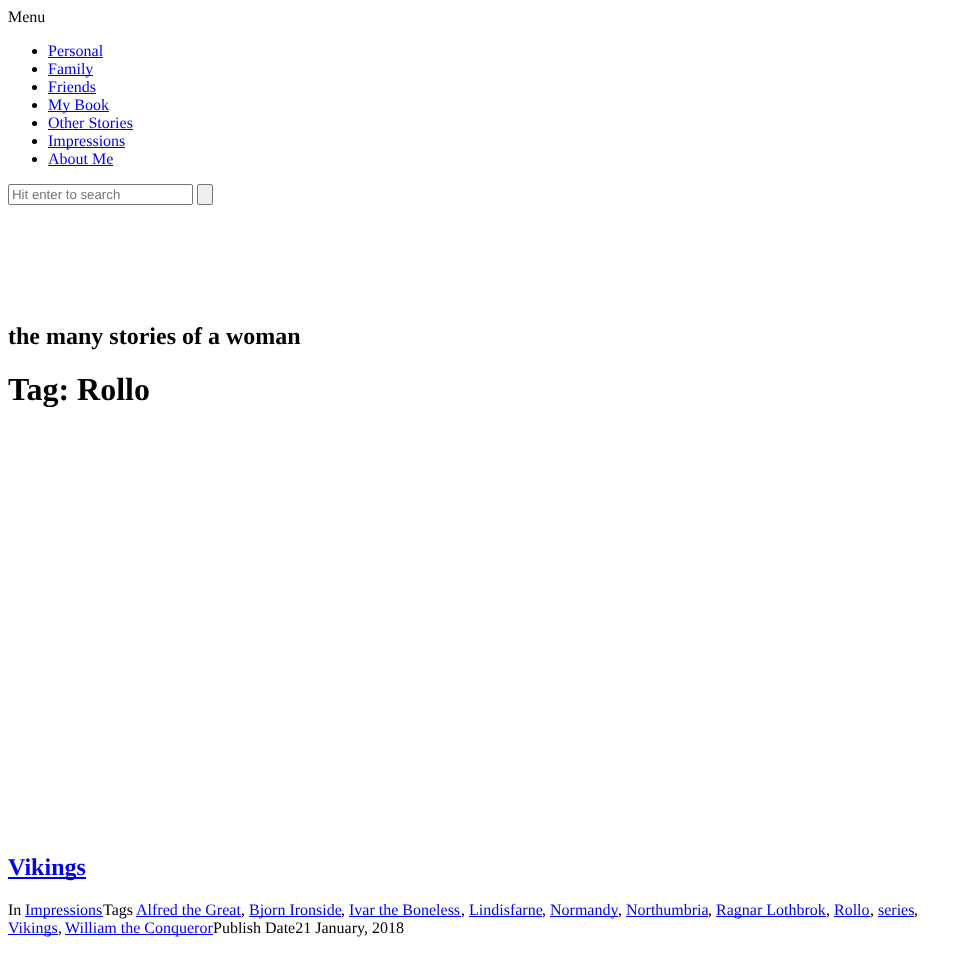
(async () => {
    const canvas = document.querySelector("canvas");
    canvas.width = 964;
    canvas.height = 959;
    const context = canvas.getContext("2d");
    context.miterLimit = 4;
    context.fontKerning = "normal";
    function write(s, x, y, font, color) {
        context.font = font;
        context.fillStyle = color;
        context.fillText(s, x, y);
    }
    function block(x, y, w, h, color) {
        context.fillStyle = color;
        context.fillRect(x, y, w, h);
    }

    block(0, 0, 964, 959, "rgb(255, 255, 255)");
    write("Menu", 8, 22, "16px Liberation Serif", "rgb(0, 0, 0)");
    context.beginPath();
    context.arc(34.5, 51.5, 2.5, 0, Math.PI * 2);
    context.fill();
    write("Personal", 48, 56, "16px Liberation Serif", "rgb(0, 0, 238)");
    block(48, 57, 55, 1, "rgb(0, 0, 238)");
    context.fillStyle = "rgb(0, 0, 0)";
    context.beginPath();
    context.arc(34.5, 69.5, 2.5, 0, Math.PI * 2);
    context.fill();
    block(48, 75, 45, 1, "rgb(0, 0, 238)");
    write("Family", 48, 74, "16px Liberation Serif", "rgb(0, 0, 238)");
    context.fillStyle = "rgb(0, 0, 0)";
    context.beginPath();
    context.arc(34.5, 87.5, 2.5, 0, Math.PI * 2);
    context.fill();
    write("Friends", 48, 92, "16px Liberation Serif", "rgb(0, 0, 238)");
    block(48, 93, 48, 1, "rgb(0, 0, 238)");
    context.fillStyle = "rgb(0, 0, 0)";
    context.beginPath();
    context.arc(34.5, 105.5, 2.5, 0, Math.PI * 2);
    context.fill();
    block(48, 111, 61, 1, "rgb(0, 0, 238)");
    write("My Book", 48, 110, "16px Liberation Serif", "rgb(0, 0, 238)");
    context.fillStyle = "rgb(0, 0, 0)";
    context.beginPath();
    context.arc(34.5, 123.5, 2.5, 0, Math.PI * 2);
    context.fill();
    write("Other Stories", 48, 128, "16px Liberation Serif", "rgb(0, 0, 238)");
    block(48, 129, 85, 1, "rgb(0, 0, 238)");
    context.fillStyle = "rgb(0, 0, 0)";
    context.beginPath();
    context.arc(34.5, 141.5, 2.5, 0, Math.PI * 2);
    context.fill();
    block(48, 147, 77, 1, "rgb(0, 0, 238)");
    write("Impressions", 48, 146, "16px Liberation Serif", "rgb(0, 0, 238)");
    context.fillStyle = "rgb(0, 0, 0)";
    context.beginPath();
    context.arc(34.5, 159.5, 2.5, 0, Math.PI * 2);
    context.fill();
    write("About Me", 48, 164, "16px Liberation Serif", "rgb(0, 0, 238)");
    block(48, 165, 65, 1, "rgb(0, 0, 238)");
    context.beginPath();
    context.roundRect(8.5, 184.5, 184, 20, 1.5);
    context.strokeStyle = "rgb(118, 118, 118)";
    context.stroke();
    write("Hit enter to search", 12, 199, "13.25px Liberation Sans", "rgb(117, 117, 117)");
    context.fillStyle = "rgb(239, 239, 239)";
    context.beginPath();
    context.roundRect(197.5, 184.5, 15, 20, 1.5);
    context.fill();
    context.stroke();
    write("the many stories of a woman", 8, 344, "bold 24px Liberation Serif", "rgb(0, 0, 0)");
    write("Tag: Rollo", 8, 400, "bold 32px Liberation Serif", "rgb(0, 0, 0)");
    block(8, 877, 78, 2, "rgb(0, 0, 238)");
    write("Vikings", 8, 875, "bold 24px Liberation Serif", "rgb(0, 0, 238)");
    write("In", 8, 915, "16px Liberation Serif", "rgb(0, 0, 0)");
    block(25, 916, 78, 1, "rgb(0, 0, 238)");
    write("Impressions", 25, 915, "16px Liberation Serif", "rgb(0, 0, 238)");
    write("Tags", 103, 915, "16px Liberation Serif", "rgb(0, 0, 0)");
    write("Alfred the Great", 136, 915, "16px Liberation Serif", "rgb(0, 0, 238)");
    write(",", 241, 915, "16px Liberation Serif", "rgb(0, 0, 0)");
    block(136, 916, 105, 1, "rgb(0, 0, 238)");
    block(249, 916, 92, 1, "rgb(0, 0, 238)");
    write("Bjorn Ironside", 249, 915, "16px Liberation Serif", "rgb(0, 0, 238)");
    write(",", 341, 915, "16px Liberation Serif", "rgb(0, 0, 0)");
    write("Ivar the Boneless", 349, 915, "16px Liberation Serif", "rgb(0, 0, 238)");
    write(",", 461, 915, "16px Liberation Serif", "rgb(0, 0, 0)");
    block(349, 916, 112, 1, "rgb(0, 0, 238)");
    write("Lindisfarne", 469, 915, "16px Liberation Serif", "rgb(0, 0, 238)");
    write(",", 542, 915, "16px Liberation Serif", "rgb(0, 0, 0)");
    block(469, 916, 73, 1, "rgb(0, 0, 238)");
    block(550, 916, 68, 1, "rgb(0, 0, 238)");
    write("Normandy", 550, 915, "16px Liberation Serif", "rgb(0, 0, 238)");
    write(",", 618, 915, "16px Liberation Serif", "rgb(0, 0, 0)");
    write("Northumbria", 626, 915, "16px Liberation Serif", "rgb(0, 0, 238)");
    write(",", 708, 915, "16px Liberation Serif", "rgb(0, 0, 0)");
    block(626, 916, 82, 1, "rgb(0, 0, 238)");
    block(716, 916, 110, 1, "rgb(0, 0, 238)");
    write("Ragnar Lothbrok", 716, 915, "16px Liberation Serif", "rgb(0, 0, 238)");
    write(",", 826, 915, "16px Liberation Serif", "rgb(0, 0, 0)");
    write("Rollo", 834, 915, "16px Liberation Serif", "rgb(0, 0, 238)");
    write(",", 870, 915, "16px Liberation Serif", "rgb(0, 0, 0)");
    block(834, 916, 36, 1, "rgb(0, 0, 238)");
    write("series", 878, 915, "16px Liberation Serif", "rgb(0, 0, 238)");
    write(",", 914, 915, "16px Liberation Serif", "rgb(0, 0, 0)");
    block(878, 916, 36, 1, "rgb(0, 0, 238)");
    block(8, 934, 50, 1, "rgb(0, 0, 238)");
    write("Vikings", 8, 933, "16px Liberation Serif", "rgb(0, 0, 238)");
    write(",", 58, 933, "16px Liberation Serif", "rgb(0, 0, 0)");
    block(65, 934, 148, 1, "rgb(0, 0, 238)");
    write("William the Conqueror", 65, 933, "16px Liberation Serif", "rgb(0, 0, 238)");
    write("Publish Date21 January, 2018", 213, 933, "16px Liberation Serif", "rgb(0, 0, 0)");
})();
